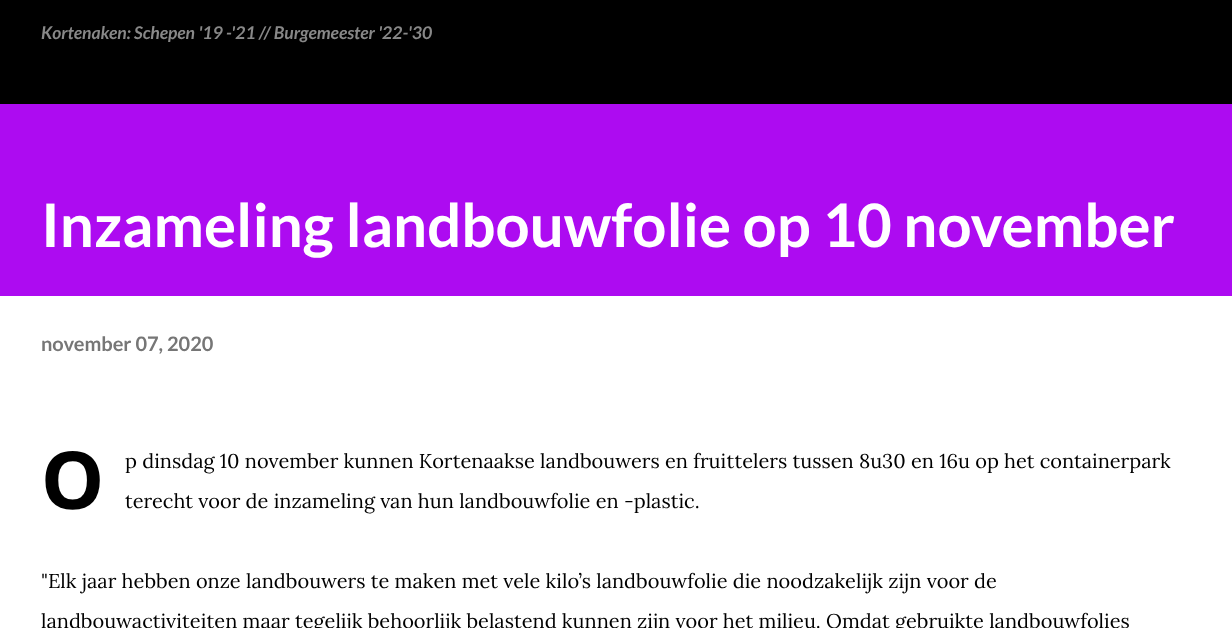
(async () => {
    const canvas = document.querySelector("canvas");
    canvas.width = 1232;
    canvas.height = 628;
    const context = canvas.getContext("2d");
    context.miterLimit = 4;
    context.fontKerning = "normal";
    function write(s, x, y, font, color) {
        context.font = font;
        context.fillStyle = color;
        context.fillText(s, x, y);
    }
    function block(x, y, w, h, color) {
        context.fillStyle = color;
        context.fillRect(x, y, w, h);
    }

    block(0, 0, 1232, 628, "rgb(255, 255, 255)");
    block(0, 0, 1232, 104, "rgb(0, 0, 0)");
    write("Kortenaken: Schepen '19 -'21 // Burgemeester '22-'30", 41, 39, "italic bold 17.5px Lato", "rgb(136, 136, 136)");
    block(0, 104, 1232, 192, "rgb(173, 11, 241)");
    write("Inzameling landbouwfolie op 10 november", 41, 247, "bold 60px Lato", "rgb(255, 255, 255)");
    write("november 07, 2020", 41, 351, "bold 20px Lato", "rgb(118, 118, 118)");
    write("O", 41, 509, "bold 80px Noto Sans", "rgb(0, 0, 0)");
    write("p dinsdag 10 november kunnen Kortenaakse landbouwers en fruittelers tussen 8u30 en 16u op het containerpark", 125, 468, "20px Lora", "rgb(0, 0, 0)");
    write("terecht voor de inzameling van hun landbouwfolie en -plastic.", 125, 508, "20px Lora", "rgb(0, 0, 0)");
    write("\"Elk jaar hebben onze landbouwers te maken met vele kilo’s landbouwfolie die noodzakelijk zijn voor de", 41, 588, "20px Lora", "rgb(0, 0, 0)");
    write("landbouwactiviteiten maar tegelijk behoorlijk belastend kunnen zijn voor het milieu. Omdat gebruikte landbouwfolies", 41, 628, "20px Lora", "rgb(0, 0, 0)");
})();
